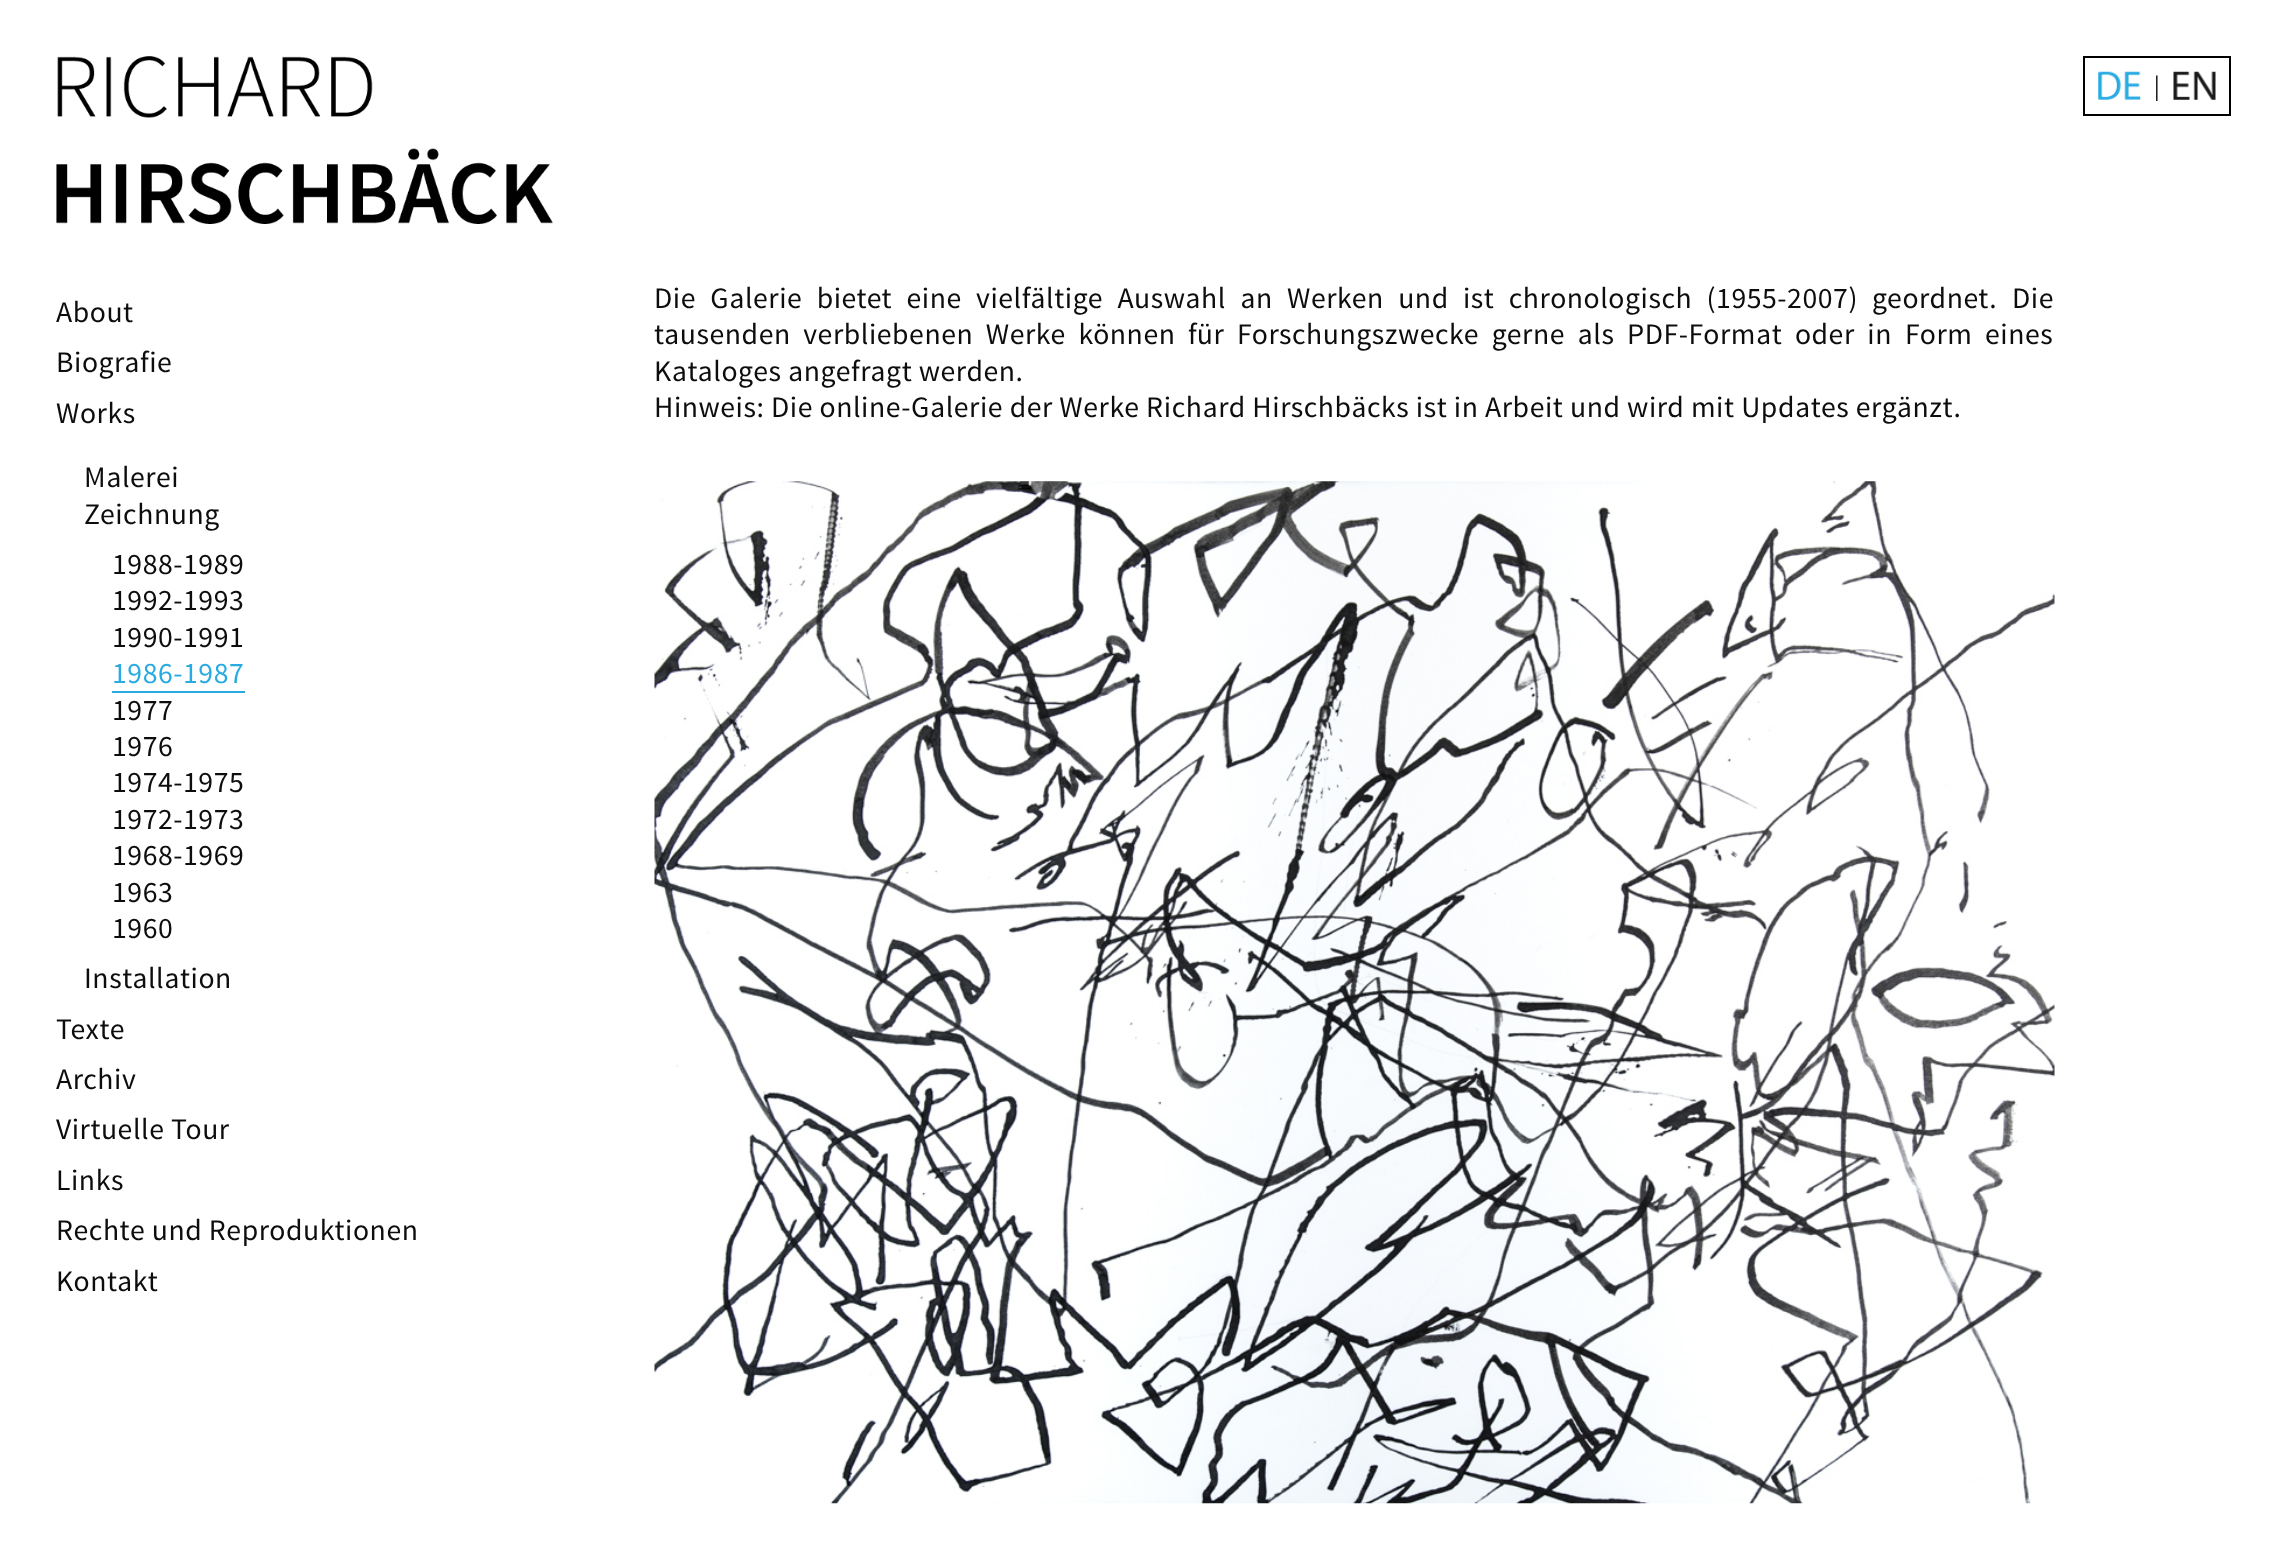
(async () => {
    const canvas = document.querySelector("canvas");
    canvas.width = 2287;
    canvas.height = 1546;
    const context = canvas.getContext("2d");
    context.miterLimit = 4;
    context.fontKerning = "normal";
    function write(s, x, y, font, color) {
        context.font = font;
        context.fillStyle = color;
        context.fillText(s, x, y);
    }
    function block(x, y, w, h, color) {
        context.fillStyle = color;
        context.fillRect(x, y, w, h);
    }
    async function photo(src, x, y, w, h) {
        const img = new Image();
        img.src = src;
        await img.decode();
        context.drawImage(img, x, y, w, h);
    }

    block(0, 0, 2287, 1546, "rgb(255, 255, 255)");
    await photo("media/1.png", 56, 56, 497, 168);
    context.strokeStyle = "rgb(0, 0, 0)";
    context.lineWidth = 2;
    context.strokeRect(2084, 57, 146, 58);
    await photo("media/2.png", 2098, 71, 43, 29);
    write("|", 2154, 95, "28px Liberation Serif", "rgb(0, 0, 0)");
    await photo("media/3.png", 2173, 71, 43, 29);
    context.letterSpacing = "0.56px";
    write("About", 56, 322, "29.7px Source Sans Pro", "rgb(13, 13, 13)");
    write("Biografie", 56, 372, "29.7px Source Sans Pro", "rgb(13, 13, 13)");
    write("Works", 56, 423, "29.7px Source Sans Pro", "rgb(13, 13, 13)");
    write("Malerei", 84, 487, "29.7px Source Sans Pro", "rgb(13, 13, 13)");
    write("Zeichnung", 84, 524, "29.7px Source Sans Pro", "rgb(13, 13, 13)");
    write("1988-1989", 112, 574, "29.7px Source Sans Pro", "rgb(13, 13, 13)");
    write("1992-1993", 112, 610, "29.7px Source Sans Pro", "rgb(13, 13, 13)");
    write("1990-1991", 112, 647, "29.7px Source Sans Pro", "rgb(13, 13, 13)");
    write("1986-1987", 112, 683, "29.7px Source Sans Pro", "rgb(41, 171, 226)");
    block(112, 691, 133, 2, "rgb(41, 171, 226)");
    write("1977", 112, 720, "29.7px Source Sans Pro", "rgb(13, 13, 13)");
    write("1976", 112, 756, "29.7px Source Sans Pro", "rgb(13, 13, 13)");
    write("1974-1975", 112, 792, "29.7px Source Sans Pro", "rgb(13, 13, 13)");
    write("1972-1973", 112, 829, "29.7px Source Sans Pro", "rgb(13, 13, 13)");
    write("1968-1969", 112, 865, "29.7px Source Sans Pro", "rgb(13, 13, 13)");
    write("1963", 112, 902, "29.7px Source Sans Pro", "rgb(13, 13, 13)");
    write("1960", 112, 938, "29.7px Source Sans Pro", "rgb(13, 13, 13)");
    write("Installation", 84, 988, "29.7px Source Sans Pro", "rgb(13, 13, 13)");
    write("Texte", 56, 1039, "29.7px Source Sans Pro", "rgb(13, 13, 13)");
    write("Archiv", 56, 1089, "29.7px Source Sans Pro", "rgb(13, 13, 13)");
    write("Virtuelle Tour", 56, 1139, "29.7px Source Sans Pro", "rgb(13, 13, 13)");
    write("Links", 56, 1190, "29.7px Source Sans Pro", "rgb(13, 13, 13)");
    write("Rechte und Reproduktionen", 56, 1240, "29.7px Source Sans Pro", "rgb(13, 13, 13)");
    write("Kontakt", 56, 1291, "29.7px Source Sans Pro", "rgb(13, 13, 13)");
    context.wordSpacing = "7.75px";
    write("Die Galerie bietet eine vielfältige Auswahl an Werken und ist chronologisch (1955-2007)", 654, 308, "29.7px Source Sans Pro", "rgb(13, 13, 13)");
    context.wordSpacing = "0px";
    write("geordnet.", 1872, 308, "29.7px Source Sans Pro", "rgb(13, 13, 13)");
    write("Die", 2012, 308, "29.7px Source Sans Pro", "rgb(13, 13, 13)");
    context.wordSpacing = "6px";
    write("tausenden verbliebenen Werke können für Forschungszwecke gerne als PDF-Format oder in", 654, 344, "29.7px Source Sans Pro", "rgb(13, 13, 13)");
    context.wordSpacing = "0px";
    write("Form", 1905, 344, "29.7px Source Sans Pro", "rgb(13, 13, 13)");
    write("eines", 1985, 344, "29.7px Source Sans Pro", "rgb(13, 13, 13)");
    write("Kataloges angefragt werden.", 654, 381, "29.7px Source Sans Pro", "rgb(13, 13, 13)");
    write("Hinweis: Die online-Galerie der Werke Richard Hirschbäcks ist in Arbeit und wird mit Updates ergänzt.", 654, 417, "29.7px Source Sans Pro", "rgb(13, 13, 13)");
    await photo("media/4.png", 654, 481, 1401, 1023);
})();
